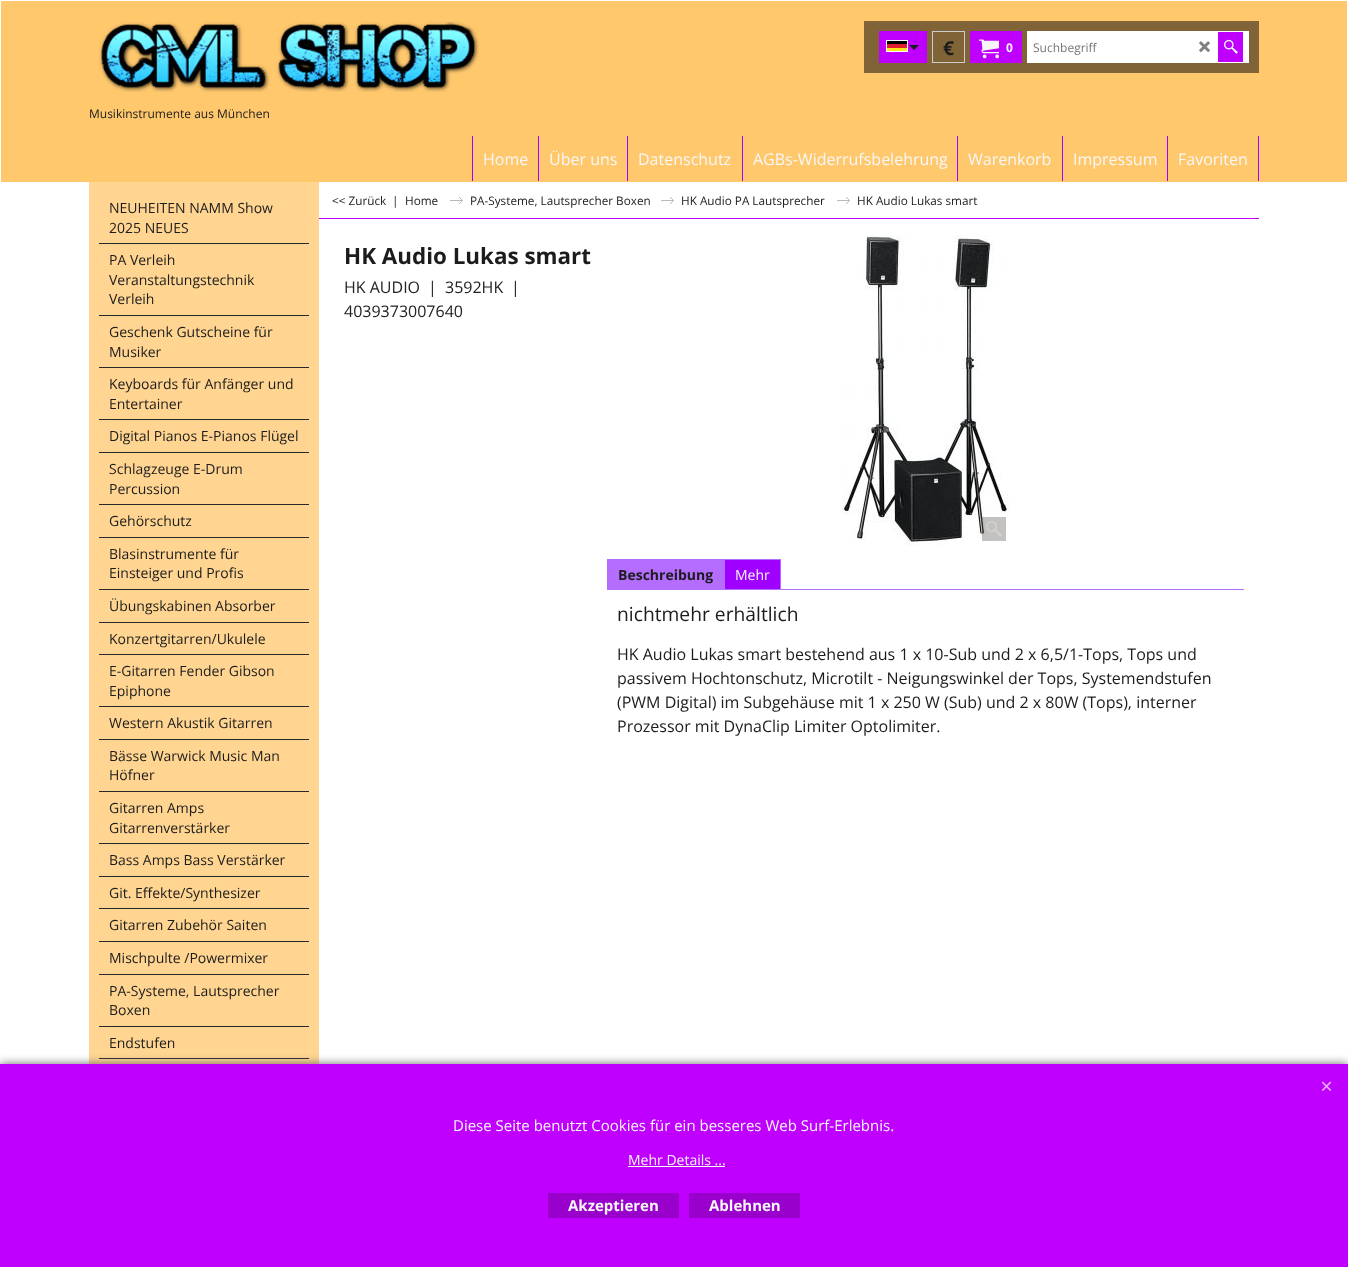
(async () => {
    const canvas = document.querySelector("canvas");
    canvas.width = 1348;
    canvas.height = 1267;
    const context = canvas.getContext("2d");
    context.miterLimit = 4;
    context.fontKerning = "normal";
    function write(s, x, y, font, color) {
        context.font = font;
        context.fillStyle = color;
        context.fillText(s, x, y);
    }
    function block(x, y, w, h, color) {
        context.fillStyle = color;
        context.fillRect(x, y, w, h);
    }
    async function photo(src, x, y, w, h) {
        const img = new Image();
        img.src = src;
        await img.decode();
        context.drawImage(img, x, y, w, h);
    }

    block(0, 0, 1348, 1267, "rgb(255, 255, 255)");
    block(1, 1, 1346, 181, "rgb(255, 200, 109)");
    block(864, 21, 395, 52, "rgb(128, 100, 55)");
    block(879, 31, 48, 32, "rgb(191, 0, 255)");
    context.strokeStyle = "rgb(255, 255, 255)";
    context.strokeRect(886.5, 40.5, 21, 11);
    await photo("media/1.png", 887, 41, 20, 10);
    context.fillStyle = "rgb(28, 28, 28)";
    context.beginPath();
    context.moveTo(909, 45);
    context.lineTo(914, 50);
    context.lineTo(919, 45);
    context.closePath();
    context.fill();
    context.strokeStyle = "rgb(204, 204, 204)";
    context.strokeRect(932.5, 31.5, 32, 31);
    write("€", 943, 55, "bold 19.25px Open Sans", "rgb(28, 28, 28)");
    block(970, 31, 52, 32, "rgb(191, 0, 255)");
    await photo("media/2.png", 979, 39, 20, 20);
    write("0", 1006, 52, "bold 12px Open Sans", "rgb(247, 247, 247)");
    block(1027, 31, 222, 32, "rgb(255, 255, 255)");
    write("Suchbegriff", 1033, 52, "12px Open Sans", "rgb(117, 117, 117)");
    await photo("media/3.png", 1199, 41, 11, 12);
    block(1218, 32, 25, 30, "rgb(191, 0, 255)");
    await photo("media/4.png", 1224, 39, 14, 15);
    await photo("media/5.png", 99, 21, 380, 71);
    write("Musikinstrumente aus München", 89, 118, "12px Open Sans", "rgb(28, 28, 28)");
    block(472, 136, 1, 45, "rgb(159, 0, 255)");
    write("Home", 483, 165, "16px Open Sans", "rgb(247, 247, 247)");
    block(538, 136, 1, 45, "rgb(159, 0, 255)");
    write("Über uns", 549, 165, "16px Open Sans", "rgb(247, 247, 247)");
    block(627, 136, 1, 45, "rgb(159, 0, 255)");
    write("Datenschutz", 638, 165, "16px Open Sans", "rgb(247, 247, 247)");
    block(742, 136, 1, 45, "rgb(159, 0, 255)");
    write("AGBs-Widerrufsbelehrung", 753, 165, "16px Open Sans", "rgb(247, 247, 247)");
    block(957, 136, 1, 45, "rgb(159, 0, 255)");
    write("Warenkorb", 968, 165, "16px Open Sans", "rgb(247, 247, 247)");
    block(1062, 136, 1, 45, "rgb(159, 0, 255)");
    write("Impressum", 1073, 165, "16px Open Sans", "rgb(247, 247, 247)");
    block(1167, 136, 1, 45, "rgb(159, 0, 255)");
    write("Favoriten", 1178, 165, "16px Open Sans", "rgb(247, 247, 247)");
    block(1258, 136, 1, 45, "rgb(159, 0, 255)");
    block(89, 182, 230, 882, "rgb(255, 213, 145)");
    block(99, 243, 210, 1, "rgb(42, 42, 42)");
    write("NEUHEITEN NAMM Show", 109, 213, "14px Open Sans", "rgb(28, 28, 28)");
    write("2025 NEUES", 109, 233, "14px Open Sans", "rgb(28, 28, 28)");
    block(99, 315, 210, 1, "rgb(42, 42, 42)");
    write("PA Verleih", 109, 265, "14px Open Sans", "rgb(28, 28, 28)");
    write("Veranstaltungstechnik", 109, 285, "14px Open Sans", "rgb(28, 28, 28)");
    write("Verleih", 109, 304, "14px Open Sans", "rgb(28, 28, 28)");
    block(99, 367, 210, 1, "rgb(42, 42, 42)");
    write("Geschenk Gutscheine für", 109, 337, "14px Open Sans", "rgb(28, 28, 28)");
    write("Musiker", 109, 357, "14px Open Sans", "rgb(28, 28, 28)");
    block(99, 419, 210, 1, "rgb(42, 42, 42)");
    write("Keyboards für Anfänger und", 109, 389, "14px Open Sans", "rgb(28, 28, 28)");
    write("Entertainer", 109, 409, "14px Open Sans", "rgb(28, 28, 28)");
    block(99, 452, 210, 1, "rgb(42, 42, 42)");
    write("Digital Pianos E-Pianos Flügel", 109, 441, "14px Open Sans", "rgb(28, 28, 28)");
    block(99, 504, 210, 1, "rgb(42, 42, 42)");
    write("Schlagzeuge E-Drum", 109, 474, "14px Open Sans", "rgb(28, 28, 28)");
    write("Percussion", 109, 494, "14px Open Sans", "rgb(28, 28, 28)");
    block(99, 537, 210, 1, "rgb(42, 42, 42)");
    write("Gehörschutz", 109, 526, "14px Open Sans", "rgb(28, 28, 28)");
    block(99, 589, 210, 1, "rgb(42, 42, 42)");
    write("Blasinstrumente für", 109, 559, "14px Open Sans", "rgb(28, 28, 28)");
    write("Einsteiger und Profis", 109, 578, "14px Open Sans", "rgb(28, 28, 28)");
    block(99, 622, 210, 1, "rgb(42, 42, 42)");
    write("Übungskabinen Absorber", 109, 611, "14px Open Sans", "rgb(28, 28, 28)");
    block(99, 654, 210, 1, "rgb(42, 42, 42)");
    write("Konzertgitarren/Ukulele", 109, 644, "14px Open Sans", "rgb(28, 28, 28)");
    block(99, 706, 210, 1, "rgb(42, 42, 42)");
    write("E-Gitarren Fender Gibson", 109, 676, "14px Open Sans", "rgb(28, 28, 28)");
    write("Epiphone", 109, 696, "14px Open Sans", "rgb(28, 28, 28)");
    block(99, 739, 210, 1, "rgb(42, 42, 42)");
    write("Western Akustik Gitarren", 109, 728, "14px Open Sans", "rgb(28, 28, 28)");
    block(99, 791, 210, 1, "rgb(42, 42, 42)");
    write("Bässe Warwick Music Man", 109, 761, "14px Open Sans", "rgb(28, 28, 28)");
    write("Höfner", 109, 780, "14px Open Sans", "rgb(28, 28, 28)");
    block(99, 843, 210, 1, "rgb(42, 42, 42)");
    write("Gitarren Amps", 109, 813, "14px Open Sans", "rgb(28, 28, 28)");
    write("Gitarrenverstärker", 109, 833, "14px Open Sans", "rgb(28, 28, 28)");
    block(99, 876, 210, 1, "rgb(42, 42, 42)");
    write("Bass Amps Bass Verstärker", 109, 865, "14px Open Sans", "rgb(28, 28, 28)");
    block(99, 908, 210, 1, "rgb(42, 42, 42)");
    write("Git. Effekte/Synthesizer", 109, 898, "14px Open Sans", "rgb(28, 28, 28)");
    block(99, 941, 210, 1, "rgb(42, 42, 42)");
    write("Gitarren Zubehör Saiten", 109, 930, "14px Open Sans", "rgb(28, 28, 28)");
    block(99, 974, 210, 1, "rgb(42, 42, 42)");
    write("Mischpulte /Powermixer", 109, 963, "14px Open Sans", "rgb(28, 28, 28)");
    block(99, 1026, 210, 1, "rgb(42, 42, 42)");
    write("PA-Systeme, Lautsprecher", 109, 996, "14px Open Sans", "rgb(28, 28, 28)");
    write("Boxen", 109, 1015, "14px Open Sans", "rgb(28, 28, 28)");
    block(99, 1058, 210, 1, "rgb(42, 42, 42)");
    write("Endstufen", 109, 1048, "14px Open Sans", "rgb(28, 28, 28)");
    block(319, 218, 940, 1, "rgb(191, 0, 255)");
    write("<< Zurück", 332, 205, "11.75px Open Sans", "rgb(28, 28, 28)");
    write("|", 392, 205, "11.75px Open Sans", "rgb(28, 28, 28)");
    write("Home", 405, 205, "11.75px Open Sans", "rgb(28, 28, 28)");
    await photo("media/6.png", 450, 197, 13, 7);
    write("PA-Systeme, Lautsprecher Boxen", 470, 205, "11.75px Open Sans", "rgb(28, 28, 28)");
    await photo("media/6.png", 661, 197, 13, 7);
    write("HK Audio PA Lautsprecher", 681, 205, "11.75px Open Sans", "rgb(28, 28, 28)");
    await photo("media/6.png", 837, 197, 13, 7);
    write("HK Audio Lukas smart", 857, 205, "11.75px Open Sans", "rgb(28, 28, 28)");
    write("HK Audio Lukas smart", 344, 264, "bold 22.4px Open Sans", "rgb(28, 28, 28)");
    write("HK AUDIO", 344, 293, "16px Open Sans", "rgb(34, 34, 34)");
    write("|", 428, 293, "16px Open Sans", "rgb(34, 34, 34)");
    write("3592HK", 445, 293, "16px Open Sans", "rgb(34, 34, 34)");
    write("|", 511, 293, "16px Open Sans", "rgb(34, 34, 34)");
    write("4039373007640", 344, 317, "16px Open Sans", "rgb(34, 34, 34)");
    await photo("media/7.png", 842, 235, 167, 311);
    block(982, 517, 24, 24, "rgba(56, 54, 48, 0.3)");
    await photo("media/8.png", 986, 521, 16, 16);
    block(607, 559, 117, 31, "rgb(181, 109, 255)");
    write("Beschreibung", 618, 580, "bold 14px Open Sans", "rgb(28, 28, 28)");
    block(725, 560, 55, 29, "rgb(159, 0, 255)");
    block(724, 559, 57, 1, "rgb(181, 109, 255)");
    block(780, 559, 1, 30, "rgb(181, 109, 255)");
    block(724, 559, 1, 30, "rgb(181, 109, 255)");
    write("Mehr", 735, 580, "14px Open Sans", "rgb(247, 247, 247)");
    block(724, 589, 520, 1, "rgb(181, 109, 255)");
    write("nichtmehr erhältlich", 617, 621, "19.25px Open Sans", "rgb(28, 28, 28)");
    write("HK Audio Lukas smart bestehend aus 1 x 10-Sub und 2 x 6,5/1-Tops, Tops und", 617, 660, "16px Open Sans", "rgb(28, 28, 28)");
    write("passivem Hochtonschutz, Microtilt - Neigungswinkel der Tops, Systemendstufen", 617, 684, "16px Open Sans", "rgb(28, 28, 28)");
    write("(PWM Digital) im Subgehäuse mit 1 x 250 W (Sub) und 2 x 80W (Tops), interner", 617, 708, "16px Open Sans", "rgb(28, 28, 28)");
    write("Prozessor mit DynaClip Limiter Optolimiter.", 617, 732, "16px Open Sans", "rgb(28, 28, 28)");
    context.fillStyle = "rgb(102, 102, 102)";
    context.filter = "blur(5px)";
    context.beginPath();
    context.rect(0, 1064, 1348, 203);
    context.fill();
    context.filter = "none";
    block(0, 1064, 1348, 203, "rgb(191, 0, 255)");
    await photo("media/9.png", 1321, 1081, 11, 10);
    write("Diese Seite benutzt Cookies für ein besseres Web Surf-Erlebnis.", 453, 1131, "15px Open Sans", "rgb(247, 247, 247)");
    write("Mehr Details ...", 628, 1165, "14px Open Sans", "rgb(247, 247, 247)");
    block(628, 1166, 97, 1, "rgb(247, 247, 247)");
    block(548, 1193, 131, 25, "rgb(153, 0, 204)");
    write("Akzeptieren", 568, 1211, "bold 15px Open Sans", "rgb(247, 247, 247)");
    block(689, 1193, 111, 25, "rgb(153, 0, 204)");
    write("Ablehnen", 709, 1211, "bold 15px Open Sans", "rgb(247, 247, 247)");
})();
